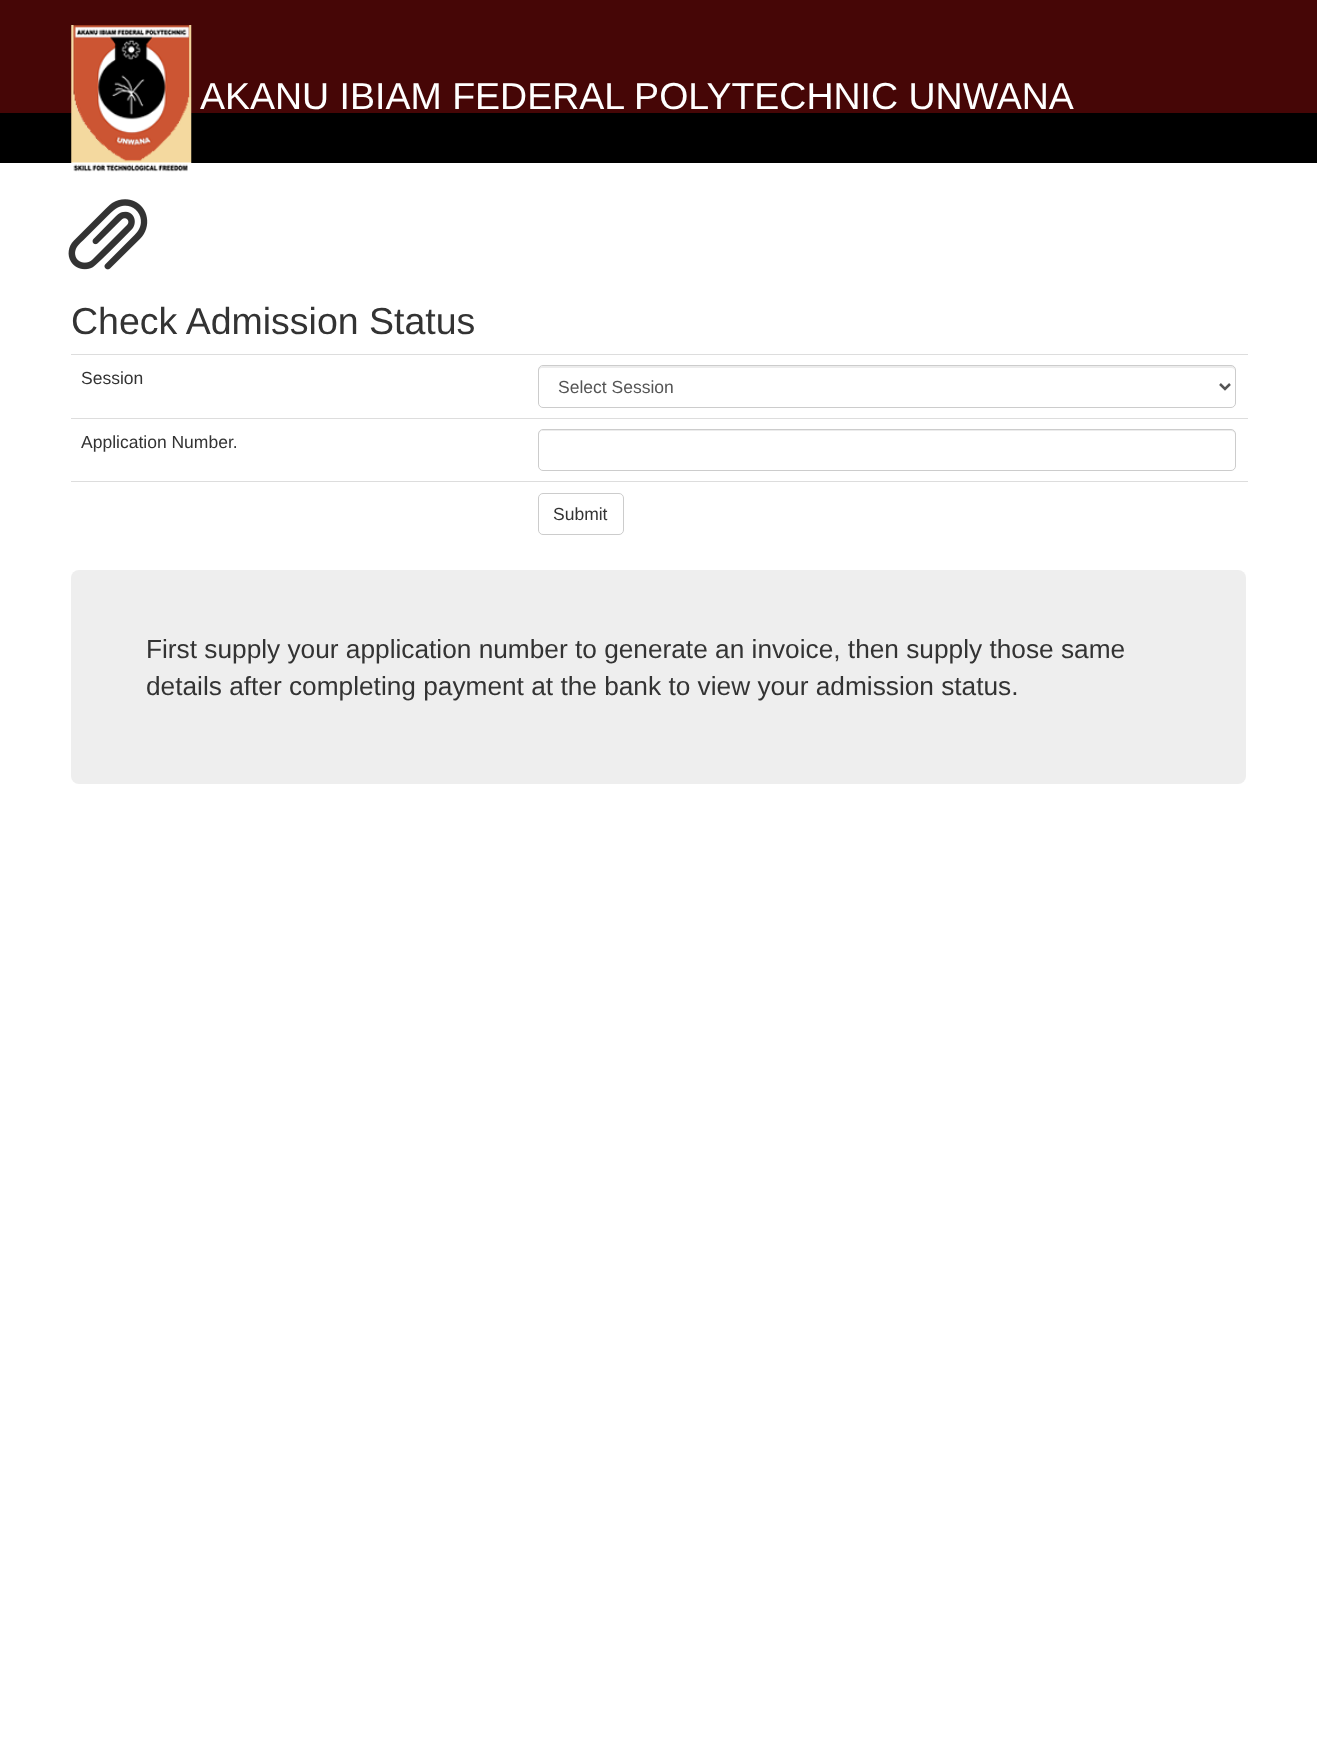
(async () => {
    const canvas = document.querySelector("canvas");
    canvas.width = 1317;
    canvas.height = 1745;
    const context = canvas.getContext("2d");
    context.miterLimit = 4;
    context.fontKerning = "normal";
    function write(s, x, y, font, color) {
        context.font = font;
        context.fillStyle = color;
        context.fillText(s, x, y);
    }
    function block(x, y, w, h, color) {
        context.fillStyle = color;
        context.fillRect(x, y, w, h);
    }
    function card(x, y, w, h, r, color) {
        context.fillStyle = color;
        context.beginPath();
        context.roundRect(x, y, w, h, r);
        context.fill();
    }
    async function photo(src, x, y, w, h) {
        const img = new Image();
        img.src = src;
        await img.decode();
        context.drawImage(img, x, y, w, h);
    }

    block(0, 0, 1317, 1745, "rgb(255, 255, 255)");
    block(0, 0, 1317, 113, "rgb(70, 6, 6)");
    block(0, 113, 1317, 50, "rgb(0, 0, 0)");
    await photo("media/1.png", 71, 25, 121, 147);
    write("AKANU IBIAM FEDERAL POLYTECHNIC UNWANA", 200, 109, "37.5px Liberation Sans", "rgb(255, 255, 255)");
    await photo("media/2.png", 68, 199, 80, 71);
    write("Check Admission Status", 71, 334, "37.5px Liberation Sans", "rgb(51, 51, 51)");
    write("Session", 81, 384, "17.5px Liberation Sans", "rgb(51, 51, 51)");
    block(71, 354, 1177, 1, "rgb(221, 221, 221)");
    context.fillStyle = "rgb(236, 236, 236)";
    context.beginPath();
    context.moveTo(542, 368);
    context.lineTo(1231, 368);
    context.bezierCurveTo(1233, 368, 1235, 369, 1235, 371);
    context.bezierCurveTo(1235, 368, 1234, 366, 1231, 366);
    context.lineTo(543, 366);
    context.lineTo(540, 367);
    context.lineTo(539, 368);
    context.lineTo(539, 371);
    context.bezierCurveTo(539, 369, 540, 368, 542, 368);
    context.closePath();
    context.fill();
    context.beginPath();
    context.roundRect(538.5, 365.5, 697, 42, 4.5);
    context.strokeStyle = "rgb(204, 204, 204)";
    context.stroke();
    context.beginPath();
    context.moveTo(1220, 384);
    context.lineTo(1225, 389);
    context.lineTo(1230, 384);
    context.strokeStyle = "rgb(85, 85, 85)";
    context.lineWidth = 2.5;
    context.stroke();
    write("Select Session", 558, 393, "17.5px Liberation Sans", "rgb(85, 85, 85)");
    block(71, 418, 1177, 1, "rgb(221, 221, 221)");
    context.fillStyle = "rgb(236, 236, 236)";
    context.beginPath();
    context.moveTo(542, 431);
    context.lineTo(1231, 431);
    context.bezierCurveTo(1233, 431, 1235, 433, 1235, 435);
    context.bezierCurveTo(1235, 432, 1234, 430, 1231, 430);
    context.lineTo(543, 430);
    context.lineTo(540, 431);
    context.lineTo(539, 432);
    context.lineTo(539, 435);
    context.bezierCurveTo(539, 433, 540, 431, 542, 431);
    context.closePath();
    context.fill();
    context.beginPath();
    context.roundRect(538.5, 429.5, 697, 41, 4.5);
    context.strokeStyle = "rgb(204, 204, 204)";
    context.lineWidth = 1;
    context.stroke();
    write("Application Number.", 81, 448, "17.5px Liberation Sans", "rgb(51, 51, 51)");
    block(71, 481, 1177, 1, "rgb(221, 221, 221)");
    context.beginPath();
    context.roundRect(538.5, 493.5, 85, 41, 4.5);
    context.stroke();
    write("Submit", 553, 520, "17.5px Liberation Sans", "rgb(51, 51, 51)");
    card(71, 570, 1175, 214, 8, "rgb(238, 238, 238)");
    write("First supply your application number to generate an invoice, then supply those same", 146, 658, "26.25px Liberation Sans", "rgb(51, 51, 51)");
    write("details after completing payment at the bank to view your admission status.", 146, 695, "26.25px Liberation Sans", "rgb(51, 51, 51)");
})();
